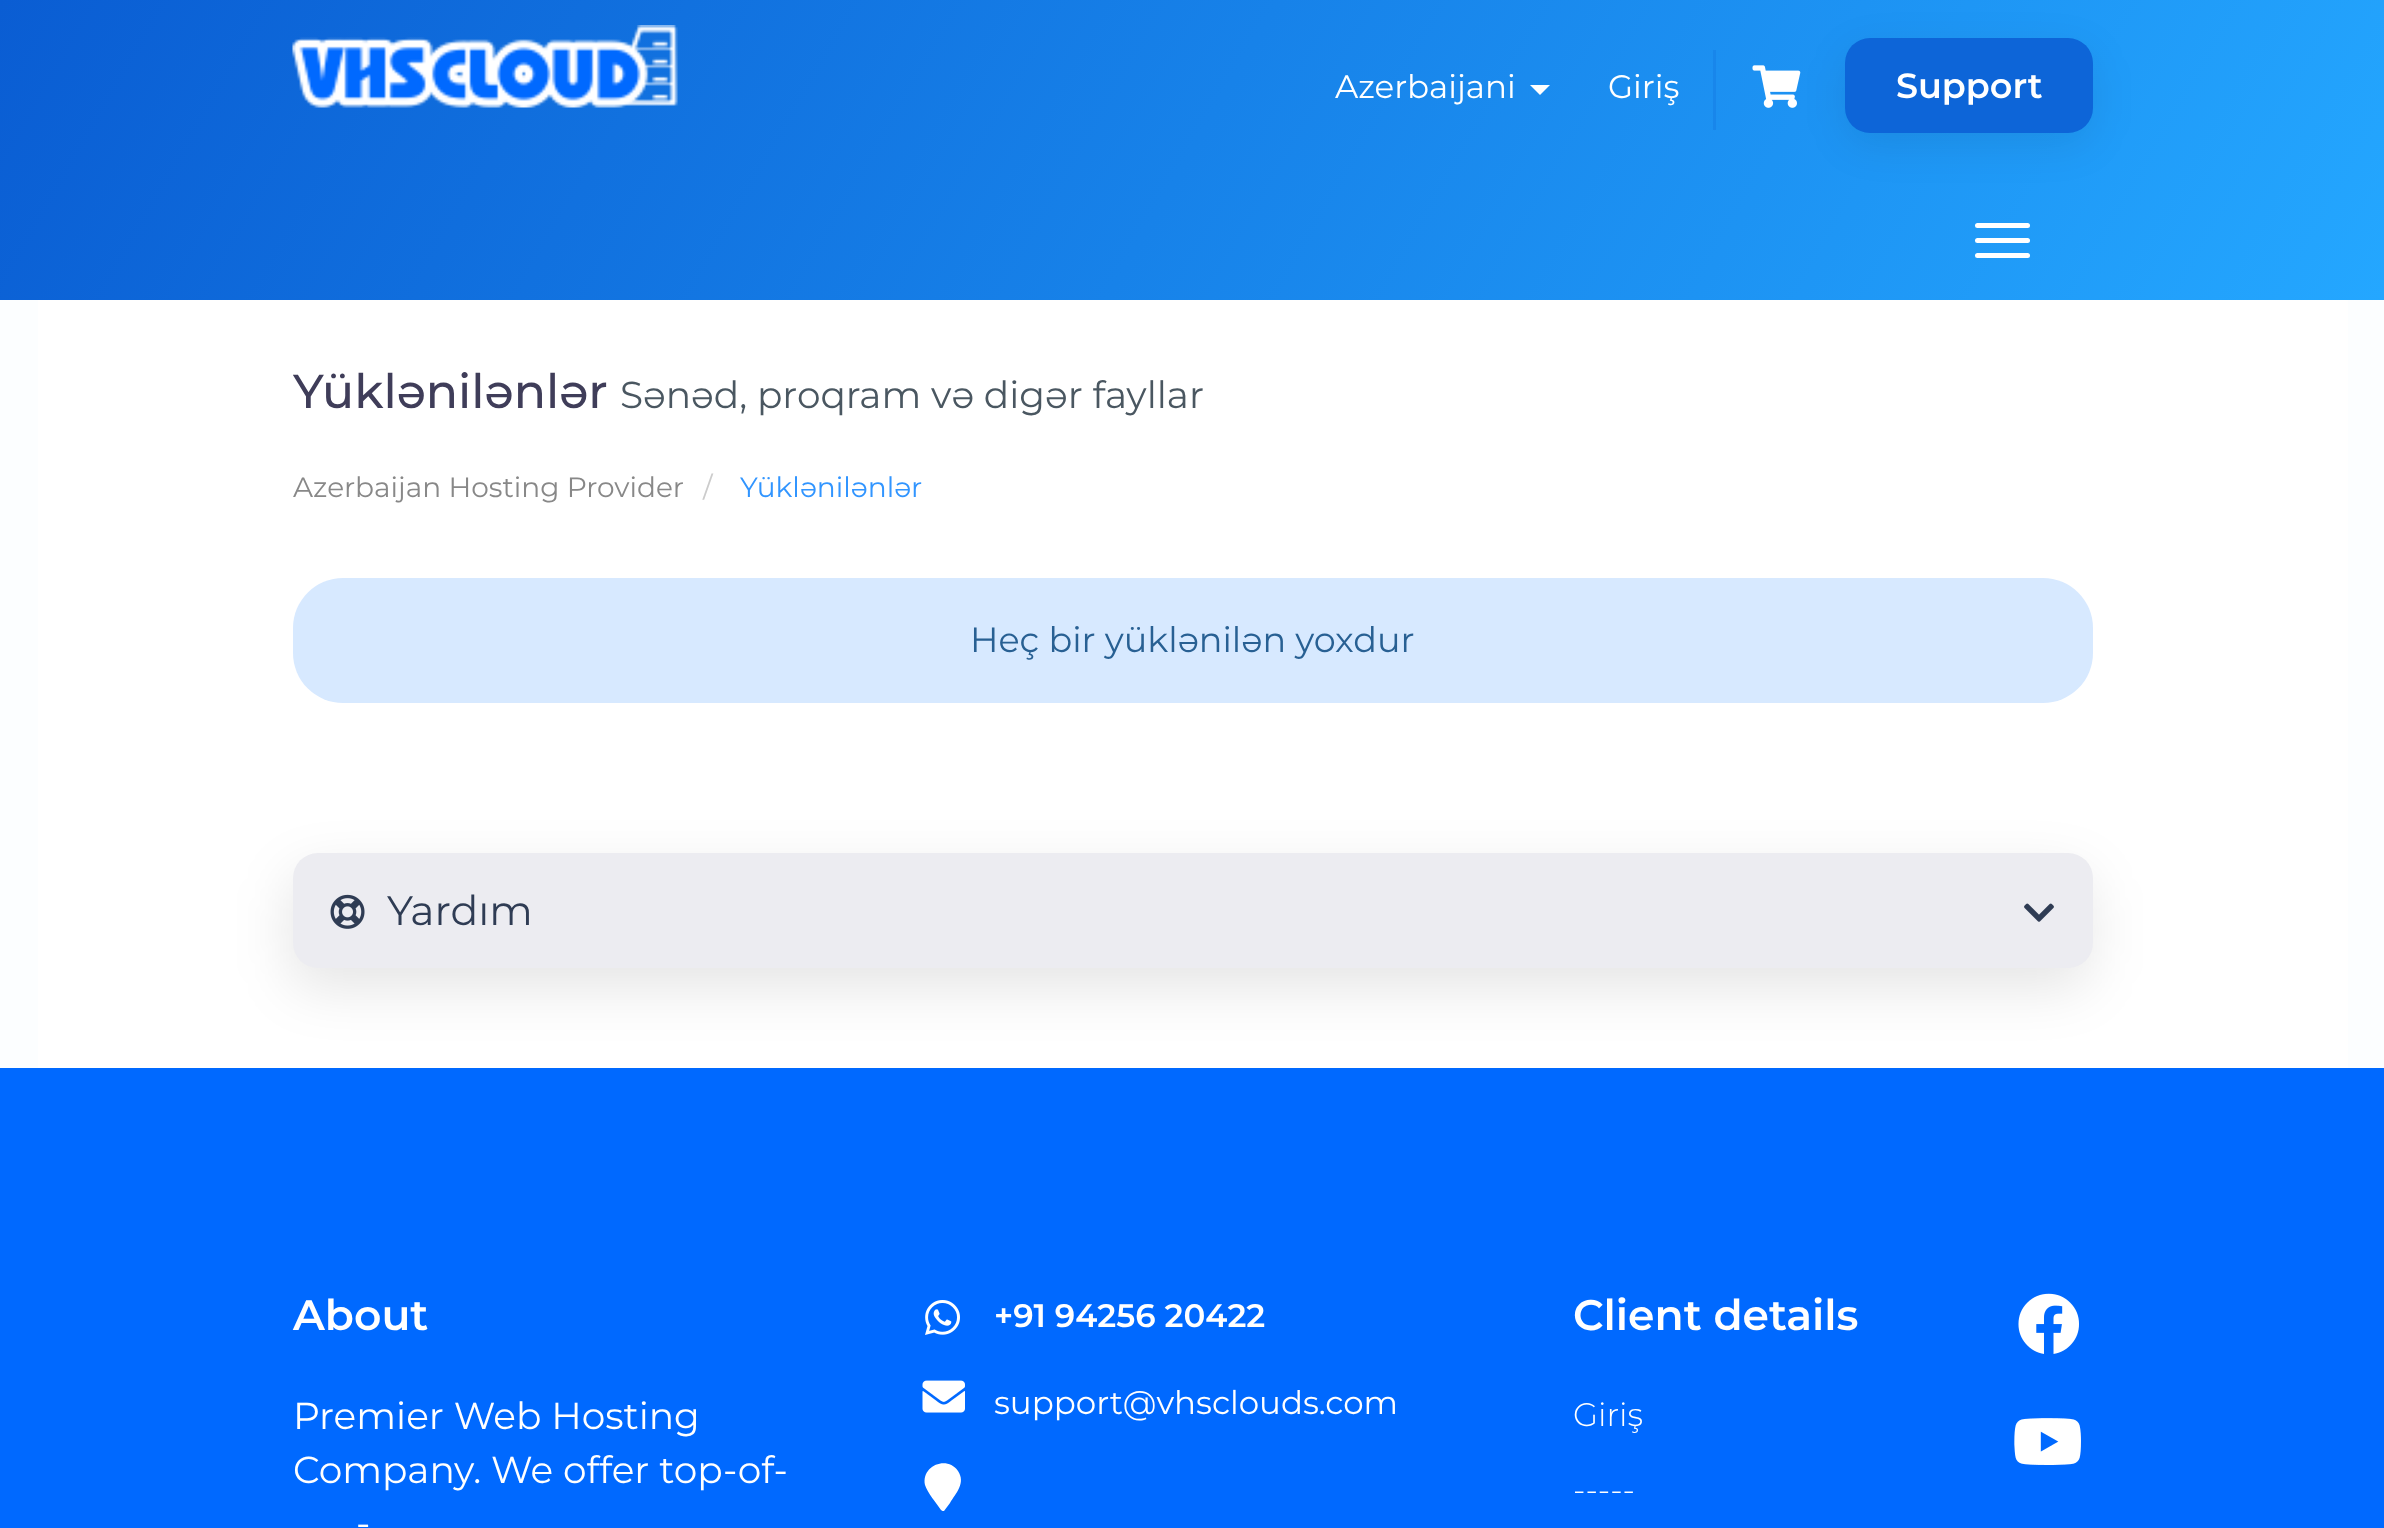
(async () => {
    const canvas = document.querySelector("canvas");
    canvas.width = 2384;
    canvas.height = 1528;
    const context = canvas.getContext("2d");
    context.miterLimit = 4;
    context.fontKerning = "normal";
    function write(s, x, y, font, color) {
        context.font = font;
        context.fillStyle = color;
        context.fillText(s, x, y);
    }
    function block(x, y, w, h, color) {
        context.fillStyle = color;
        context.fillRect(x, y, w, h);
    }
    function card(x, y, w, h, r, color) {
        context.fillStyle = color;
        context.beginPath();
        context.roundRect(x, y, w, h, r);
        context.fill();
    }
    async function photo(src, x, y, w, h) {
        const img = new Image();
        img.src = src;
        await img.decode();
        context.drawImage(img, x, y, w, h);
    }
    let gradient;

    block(0, 0, 2384, 1528, "rgb(252, 254, 255)");
    gradient = context.createLinearGradient(233, -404, 2152, 704);
    gradient.addColorStop(0, "rgb(10, 93, 211)");
    gradient.addColorStop(1, "rgb(36, 167, 255)");
    context.fillStyle = gradient;
    context.fillRect(0, 0, 2384, 300);
    await photo("media/1.png", 292, 25, 386, 83);
    write("Azerbaijani", 1335, 98, "32.5px Montserrat", "rgb(255, 255, 255)");
    context.beginPath();
    context.moveTo(1530, 85);
    context.lineTo(1550, 85);
    context.lineTo(1540, 95);
    context.closePath();
    context.fill();
    write("Giriş", 1608, 98, "32.5px Montserrat", "rgb(255, 255, 255)");
    block(1713, 50, 3, 80, "rgb(24, 134, 235)");
    await photo("media/2.png", 1752, 65, 49, 43);
    context.fillStyle = "rgba(0, 0, 0, 0.08)";
    context.filter = "blur(21px)";
    context.beginPath();
    context.roundRect(1845, 50, 248, 95, 25);
    context.fill();
    context.filter = "none";
    card(1845, 38, 248, 95, 25, "rgb(13, 101, 216)");
    write("Support", 1896, 98, "600 35px Montserrat", "rgb(255, 255, 255)");
    card(1975, 223, 55, 5, 2.5, "rgb(255, 255, 255)");
    card(1975, 238, 55, 5, 2.5, "rgb(255, 255, 255)");
    card(1975, 253, 55, 5, 2.5, "rgb(255, 255, 255)");
    block(38, 300, 2310, 768, "rgb(255, 255, 255)");
    write("Yüklənilənlər", 293, 408, "500 47.5px Montserrat", "rgb(63, 61, 89)");
    write("Sənəd, proqram və digər fayllar", 620, 408, "37.5px Montserrat", "rgb(74, 87, 97)");
    write("Azerbaijan Hosting Provider", 293, 497, "28px Montserrat", "rgb(136, 136, 136)");
    write("/", 703, 497, "28px Montserrat", "rgb(204, 204, 204)");
    write("Yüklənilənlər", 740, 497, "28px Montserrat", "rgb(49, 149, 255)");
    card(293, 578, 1800, 125, 50, "rgb(215, 233, 255)");
    write("Heç bir yüklənilən yoxdur", 970, 652, "35px Montserrat", "rgb(40, 96, 147)");
    block(0, 1068, 2384, 460, "rgb(0, 105, 255)");
    context.fillStyle = "rgba(0, 0, 0, 0.1)";
    context.filter = "blur(27.5px)";
    context.beginPath();
    context.roundRect(290, 873, 1800, 115, 25);
    context.fill();
    context.filter = "none";
    card(293, 853, 1800, 115, 25, "rgb(236, 236, 241)");
    await photo("media/3.png", 330, 894, 35, 35);
    write("Yardım", 387, 925, "41px Montserrat", "rgb(47, 60, 84)");
    await photo("media/4.png", 2024, 903, 30, 19);
    write("About", 293, 1330, "600 42.5px Montserrat", "rgb(255, 255, 255)");
    write("Premier Web Hosting", 293, 1429, "37.5px Montserrat", "rgb(255, 255, 255)");
    write("Company. We offer top-of-", 293, 1483, "37.5px Montserrat", "rgb(255, 255, 255)");
    write("-", 356, 1536, "37.5px Montserrat", "rgb(255, 255, 255)");
    await photo("media/5.png", 925, 1300, 35, 35);
    write("+91 94256 20422", 994, 1327, "600 32.5px Montserrat", "rgb(255, 255, 255)");
    await photo("media/6.png", 922, 1380, 43, 33);
    write("support@vhsclouds.com", 994, 1414, "32.5px Montserrat", "rgb(255, 255, 255)");
    context.beginPath();
    context.moveTo(941, 1510);
    context.bezierCurveTo(937, 1504, 927, 1492, 925, 1485);
    context.bezierCurveTo(921, 1466, 947, 1455, 958, 1471);
    context.bezierCurveTo(966, 1483, 956, 1493, 950, 1503);
    context.lineTo(944, 1511);
    context.bezierCurveTo(943, 1511, 942, 1511, 941, 1510);
    context.closePath();
    context.fill();
    write("Client details", 1573, 1330, "600 42.5px Montserrat", "rgb(255, 255, 255)");
    write("Giriş", 1573, 1426, "300 32.5px Montserrat", "rgb(255, 255, 255)");
    write("-----", 1573, 1501, "300 32.5px Montserrat", "rgb(255, 255, 255)");
    await photo("media/7.png", 2018, 1293, 61, 61);
    await photo("media/8.png", 2014, 1418, 67, 47);
})();
